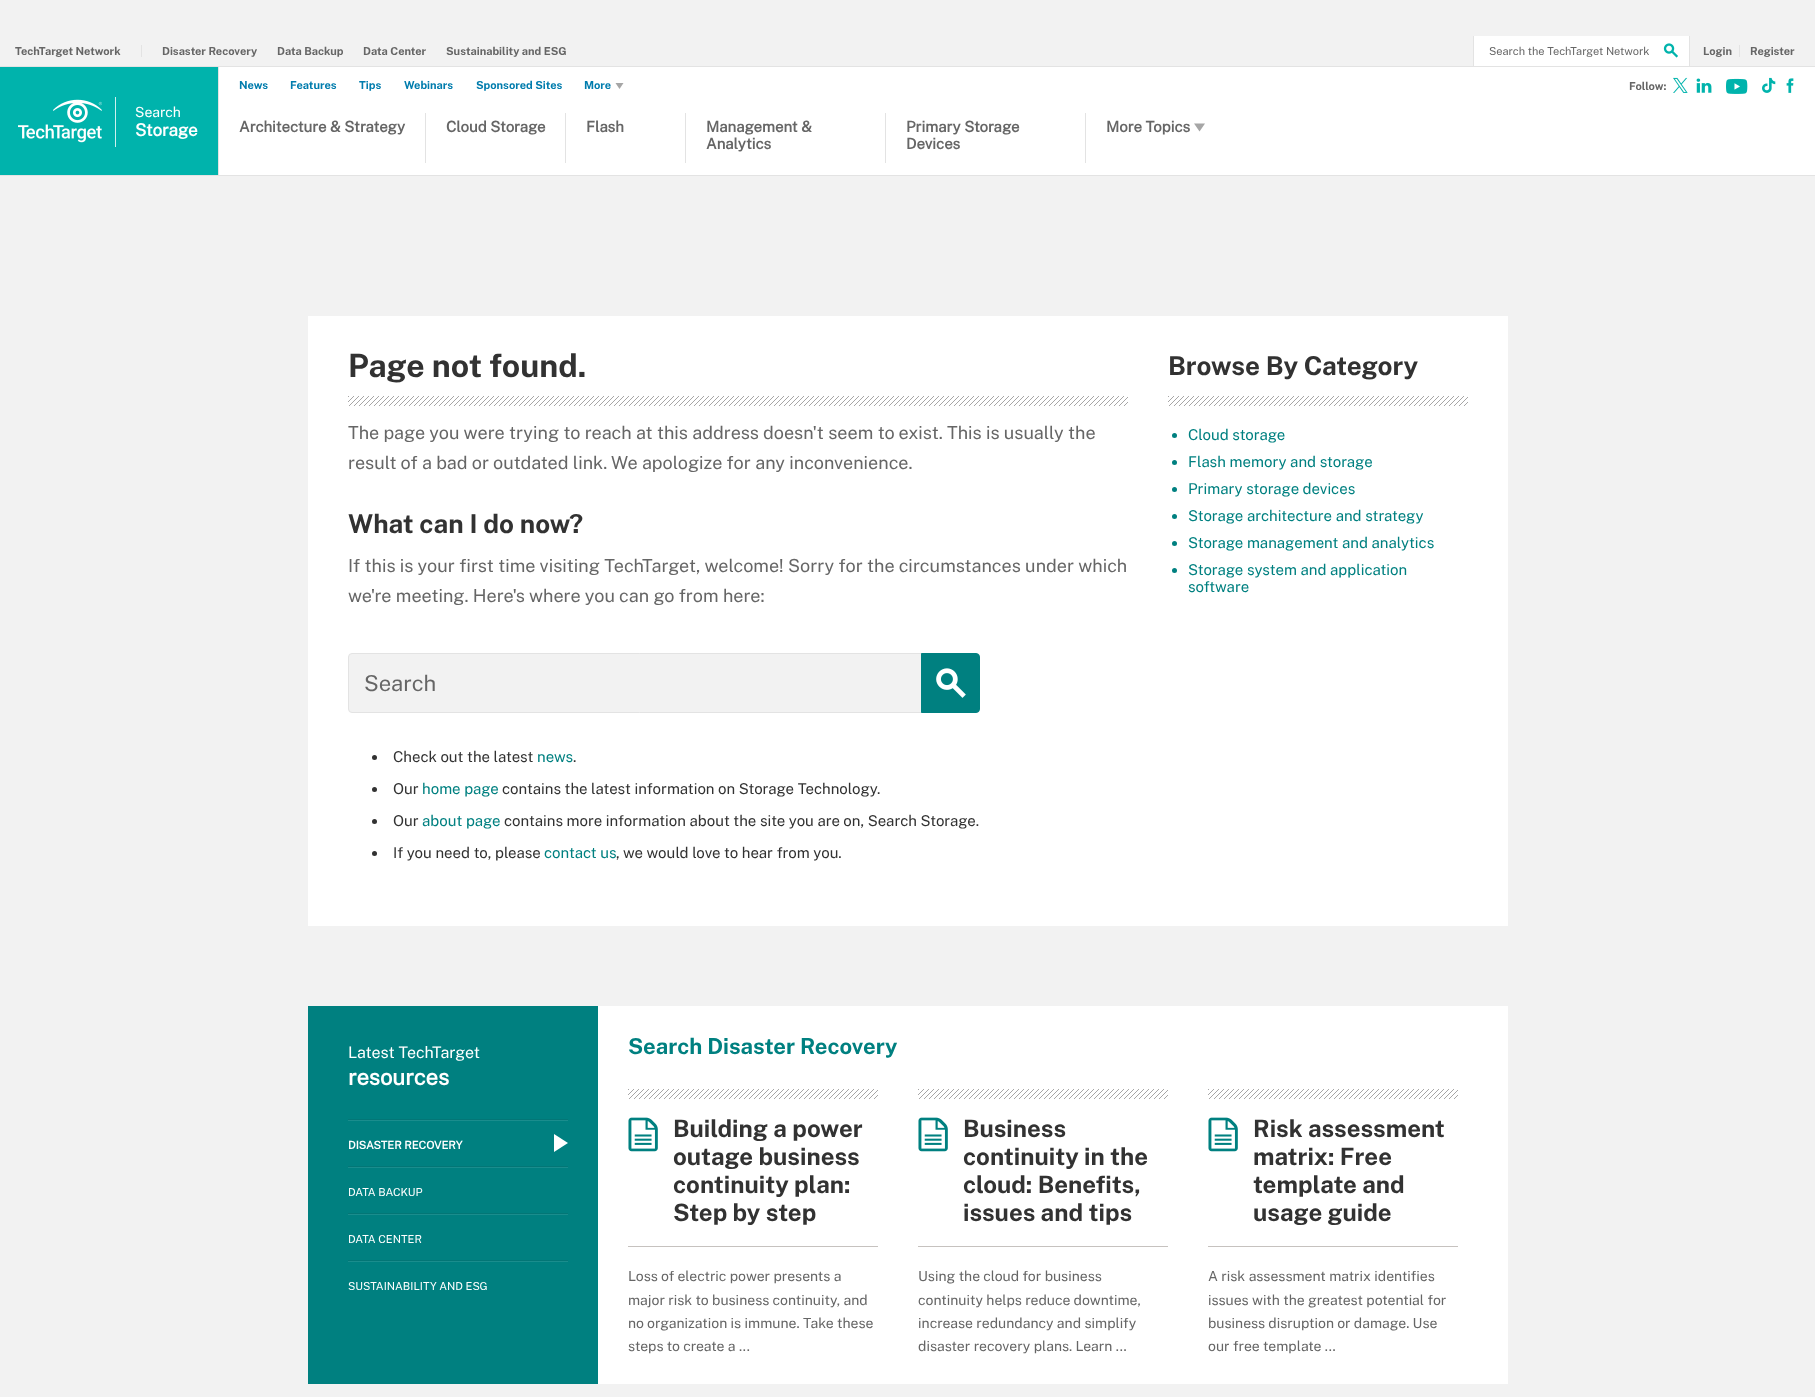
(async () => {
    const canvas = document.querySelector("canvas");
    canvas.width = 1815;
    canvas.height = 1397;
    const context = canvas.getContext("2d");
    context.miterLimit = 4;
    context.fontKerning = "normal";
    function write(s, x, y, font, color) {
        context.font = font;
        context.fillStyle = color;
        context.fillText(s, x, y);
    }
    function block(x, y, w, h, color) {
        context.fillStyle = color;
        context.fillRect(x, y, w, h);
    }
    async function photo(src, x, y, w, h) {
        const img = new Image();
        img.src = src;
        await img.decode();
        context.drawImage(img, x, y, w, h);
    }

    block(0, 0, 1815, 1397, "rgb(242, 242, 242)");
    block(0, 175, 1815, 1, "rgb(227, 227, 227)");
    write("TechTarget Network", 15, 55, "bold 11px 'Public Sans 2'", "rgb(102, 102, 102)");
    block(141, 45, 1, 12, "rgb(227, 227, 227)");
    write("Disaster Recovery", 162, 55, "bold 11px 'Public Sans 2'", "rgb(102, 102, 102)");
    write("Data Backup", 277, 55, "bold 11px 'Public Sans 2'", "rgb(102, 102, 102)");
    write("Data Center", 363, 55, "bold 11px 'Public Sans 2'", "rgb(102, 102, 102)");
    write("Sustainability and ESG", 446, 55, "bold 11px 'Public Sans 2'", "rgb(102, 102, 102)");
    write("Login", 1703, 55, "bold 11px 'Public Sans 2'", "rgb(102, 102, 102)");
    write("Register", 1750, 55, "bold 11px 'Public Sans 2'", "rgb(102, 102, 102)");
    block(1739, 45, 1, 12, "rgb(227, 227, 227)");
    block(219, 67, 1596, 108, "rgb(255, 255, 255)");
    block(0, 66, 1815, 1, "rgb(227, 227, 227)");
    block(218, 67, 1, 108, "rgb(227, 227, 227)");
    block(0, 67, 218, 108, "rgb(0, 179, 172)");
    write("Search", 135, 117, "14px Public Sans", "rgb(255, 255, 255)");
    write("Storage", 135, 136, "bold 17px Public Sans", "rgb(255, 255, 255)");
    write("News", 239, 89, "bold 11px 'Public Sans 2'", "rgb(0, 124, 173)");
    write("Features", 290, 89, "bold 11px 'Public Sans 2'", "rgb(0, 124, 173)");
    write("Tips", 359, 89, "bold 11px 'Public Sans 2'", "rgb(0, 124, 173)");
    write("Webinars", 404, 89, "bold 11px 'Public Sans 2'", "rgb(0, 124, 173)");
    write("Sponsored Sites", 476, 89, "bold 11px 'Public Sans 2'", "rgb(0, 124, 173)");
    write("More", 584, 89, "bold 11px 'Public Sans 2'", "rgb(0, 124, 173)");
    context.fillStyle = "rgb(166, 166, 166)";
    context.beginPath();
    context.moveTo(623.5, 83);
    context.lineTo(619.5, 89);
    context.lineTo(615.5, 83);
    context.closePath();
    context.fill();
    write("Architecture & Strategy", 239, 132, "bold 15px Public Sans", "rgb(102, 102, 102)");
    block(425, 113, 1, 50, "rgb(227, 227, 227)");
    write("Cloud Storage", 446, 132, "bold 15px Public Sans", "rgb(102, 102, 102)");
    block(565, 113, 1, 50, "rgb(227, 227, 227)");
    write("Flash", 586, 132, "bold 15px Public Sans", "rgb(102, 102, 102)");
    block(685, 113, 1, 50, "rgb(227, 227, 227)");
    write("Management &", 706, 132, "bold 15px Public Sans", "rgb(102, 102, 102)");
    write("Analytics", 706, 149, "bold 15px Public Sans", "rgb(102, 102, 102)");
    block(885, 113, 1, 50, "rgb(227, 227, 227)");
    write("Primary Storage", 906, 132, "bold 15px Public Sans", "rgb(102, 102, 102)");
    write("Devices", 906, 149, "bold 15px Public Sans", "rgb(102, 102, 102)");
    block(1085, 113, 1, 50, "rgb(227, 227, 227)");
    write("More Topics", 1106, 132, "bold 15px Public Sans", "rgb(102, 102, 102)");
    context.fillStyle = "rgb(166, 166, 166)";
    context.beginPath();
    context.moveTo(1205, 123.5);
    context.lineTo(1199.5, 131.5);
    context.lineTo(1194, 123.5);
    context.closePath();
    context.fill();
    write("Follow:", 1629, 90, "bold 11px 'Public Sans 2'", "rgb(102, 102, 102)");
    await photo("media/1.png", 1673, 77, 15, 16);
    await photo("media/2.png", 1696, 78, 16, 15);
    await photo("media/3.png", 1726, 78, 22, 16);
    await photo("media/4.png", 1762, 77, 14, 16);
    await photo("media/5.png", 1786, 78, 8, 15);
    block(1689, 36, 1, 30, "rgb(227, 227, 227)");
    block(1473, 36, 1, 30, "rgb(227, 227, 227)");
    block(1474, 36, 215, 30, "rgb(255, 255, 255)");
    write("Search the TechTarget Network", 1489, 55, "11px Public Sans", "rgb(102, 102, 102)");
    await photo("media/6.png", 1663, 43, 15, 15);
    await photo("media/7.png", 18, 99, 84, 44);
    block(115, 97, 1, 50, "rgb(206, 240, 238)");
    block(308, 316, 1200, 610, "rgb(255, 255, 255)");
    await photo("media/8.png", 348, 396, 780, 10);
    write("Page not found.", 348, 377, "bold 32px 'Public Sans 2'", "rgb(50, 50, 50)");
    write("The page you were trying to reach at this address doesn't seem to exist. This is usually the", 348, 439, "18px Public Sans", "rgb(102, 102, 102)");
    write("result of a bad or outdated link. We apologize for any inconvenience.", 348, 469, "18px Public Sans", "rgb(102, 102, 102)");
    write("What can I do now?", 348, 533, "bold 26px 'Public Sans 2'", "rgb(50, 50, 50)");
    write("If this is your first time visiting TechTarget, welcome! Sorry for the circumstances under which", 348, 572, "18px Public Sans", "rgb(102, 102, 102)");
    write("we're meeting. Here's where you can go from here:", 348, 602, "18px Public Sans", "rgb(102, 102, 102)");
    context.fillStyle = "rgb(242, 242, 242)";
    context.beginPath();
    context.roundRect(348.5, 653.5, 579, 59, [3.5, 0, 0, 3.5]);
    context.fill();
    context.strokeStyle = "rgb(227, 227, 227)";
    context.stroke();
    write("Search", 364, 691, "22px Public Sans", "rgb(102, 102, 102)");
    context.fillStyle = "rgb(0, 128, 128)";
    context.beginPath();
    context.roundRect(921.5, 653.5, 58, 59, [0, 3.5, 3.5, 0]);
    context.fill();
    context.strokeStyle = "rgb(0, 128, 128)";
    context.stroke();
    await photo("media/9.png", 936, 668, 30, 30);
    context.fillStyle = "rgb(50, 50, 50)";
    context.beginPath();
    context.arc(374.5, 757.5, 2.5, 0, Math.PI * 2);
    context.fill();
    write("Check out the latest", 393, 762, "15px Public Sans", "rgb(50, 50, 50)");
    write("news", 537, 762, "15px Public Sans", "rgb(0, 128, 128)");
    write(".", 573, 762, "15px Public Sans", "rgb(50, 50, 50)");
    context.beginPath();
    context.arc(374.5, 789.5, 2.5, 0, Math.PI * 2);
    context.fill();
    write("Our", 393, 794, "15px Public Sans", "rgb(50, 50, 50)");
    write("home page", 422, 794, "15px Public Sans", "rgb(0, 128, 128)");
    write("contains the latest information on Storage Technology.", 502, 794, "15px Public Sans", "rgb(50, 50, 50)");
    context.beginPath();
    context.arc(374.5, 821.5, 2.5, 0, Math.PI * 2);
    context.fill();
    write("Our", 393, 826, "15px Public Sans", "rgb(50, 50, 50)");
    write("about page", 422, 826, "15px Public Sans", "rgb(0, 128, 128)");
    write("contains more information about the site you are on, Search Storage.", 504, 826, "15px Public Sans", "rgb(50, 50, 50)");
    context.beginPath();
    context.arc(374.5, 853.5, 2.5, 0, Math.PI * 2);
    context.fill();
    write("If you need to, please", 393, 858, "15px Public Sans", "rgb(50, 50, 50)");
    write("contact us", 544, 858, "15px Public Sans", "rgb(0, 128, 128)");
    write(", we would love to hear from you.", 616, 858, "15px Public Sans", "rgb(50, 50, 50)");
    await photo("media/10.png", 1168, 396, 300, 10);
    write("Browse By Category", 1168, 375, "bold 26px 'Public Sans 2'", "rgb(50, 50, 50)");
    context.fillStyle = "rgb(0, 128, 128)";
    context.beginPath();
    context.arc(1174.5, 435.5, 2.5, 0, Math.PI * 2);
    context.fill();
    write("Cloud storage", 1188, 440, "15px Public Sans", "rgb(0, 128, 128)");
    context.beginPath();
    context.arc(1174.5, 462.5, 2.5, 0, Math.PI * 2);
    context.fill();
    write("Flash memory and storage", 1188, 467, "15px Public Sans", "rgb(0, 128, 128)");
    context.beginPath();
    context.arc(1174.5, 489.5, 2.5, 0, Math.PI * 2);
    context.fill();
    write("Primary storage devices", 1188, 494, "15px Public Sans", "rgb(0, 128, 128)");
    context.beginPath();
    context.arc(1174.5, 516.5, 2.5, 0, Math.PI * 2);
    context.fill();
    write("Storage architecture and strategy", 1188, 521, "15px Public Sans", "rgb(0, 128, 128)");
    context.beginPath();
    context.arc(1174.5, 543.5, 2.5, 0, Math.PI * 2);
    context.fill();
    write("Storage management and analytics", 1188, 548, "15px Public Sans", "rgb(0, 128, 128)");
    context.beginPath();
    context.arc(1174.5, 570.5, 2.5, 0, Math.PI * 2);
    context.fill();
    write("Storage system and application", 1188, 575, "15px Public Sans", "rgb(0, 128, 128)");
    write("software", 1188, 592, "15px Public Sans", "rgb(0, 128, 128)");
    block(598, 1006, 910, 378, "rgb(255, 255, 255)");
    block(308, 1006, 290, 378, "rgb(0, 128, 128)");
    write("Latest TechTarget", 348, 1058, "16px Public Sans", "rgb(255, 255, 255)");
    write("resources", 348, 1085, "bold 22px Public Sans", "rgb(255, 255, 255)");
    block(348, 1119, 220, 1, "rgb(3, 118, 118)");
    block(348, 1120, 220, 1, "rgb(26, 141, 141)");
    write("DISASTER RECOVERY", 348, 1149, "bold 11px Public Sans", "rgb(255, 255, 255)");
    context.beginPath();
    context.moveTo(554, 1134);
    context.lineTo(568, 1143);
    context.lineTo(554, 1152);
    context.closePath();
    context.fill();
    block(348, 1166, 220, 1, "rgb(3, 118, 118)");
    block(348, 1167, 220, 1, "rgb(26, 141, 141)");
    write("DATA BACKUP", 348, 1196, "11px Public Sans", "rgb(255, 255, 255)");
    block(348, 1213, 220, 1, "rgb(3, 118, 118)");
    block(348, 1214, 220, 1, "rgb(26, 141, 141)");
    write("DATA CENTER", 348, 1243, "11px Public Sans", "rgb(255, 255, 255)");
    block(348, 1260, 220, 1, "rgb(3, 118, 118)");
    block(348, 1261, 220, 1, "rgb(26, 141, 141)");
    write("SUSTAINABILITY AND ESG", 348, 1290, "11px Public Sans", "rgb(255, 255, 255)");
    write("Search Disaster Recovery", 628, 1054, "bold 22px 'Public Sans 2'", "rgb(0, 128, 128)");
    await photo("media/11.png", 628, 1089, 250, 10);
    await photo("media/12.png", 628, 1117, 30, 35);
    write("Building a power", 673, 1137, "bold 24px 'Public Sans 2'", "rgb(50, 50, 50)");
    write("outage business", 673, 1165, "bold 24px 'Public Sans 2'", "rgb(50, 50, 50)");
    write("continuity plan:", 673, 1193, "bold 24px 'Public Sans 2'", "rgb(50, 50, 50)");
    write("Step by step", 673, 1221, "bold 24px 'Public Sans 2'", "rgb(50, 50, 50)");
    block(628, 1246, 250, 1, "rgb(198, 194, 191)");
    write("Loss of electric power presents a", 628, 1281, "14px Public Sans", "rgb(102, 102, 102)");
    write("major risk to business continuity, and", 628, 1305, "14px Public Sans", "rgb(102, 102, 102)");
    write("no organization is immune. Take these", 628, 1328, "14px Public Sans", "rgb(102, 102, 102)");
    write("steps to create a ...", 628, 1351, "14px Public Sans", "rgb(102, 102, 102)");
    await photo("media/11.png", 918, 1089, 250, 10);
    await photo("media/12.png", 918, 1117, 30, 35);
    write("Business", 963, 1137, "bold 24px 'Public Sans 2'", "rgb(50, 50, 50)");
    write("continuity in the", 963, 1165, "bold 24px 'Public Sans 2'", "rgb(50, 50, 50)");
    write("cloud: Benefits,", 963, 1193, "bold 24px 'Public Sans 2'", "rgb(50, 50, 50)");
    write("issues and tips", 963, 1221, "bold 24px 'Public Sans 2'", "rgb(50, 50, 50)");
    block(918, 1246, 250, 1, "rgb(198, 194, 191)");
    write("Using the cloud for business", 918, 1281, "14px Public Sans", "rgb(102, 102, 102)");
    write("continuity helps reduce downtime,", 918, 1305, "14px Public Sans", "rgb(102, 102, 102)");
    write("increase redundancy and simplify", 918, 1328, "14px Public Sans", "rgb(102, 102, 102)");
    write("disaster recovery plans. Learn ...", 918, 1351, "14px Public Sans", "rgb(102, 102, 102)");
    await photo("media/11.png", 1208, 1089, 250, 10);
    await photo("media/12.png", 1208, 1117, 30, 35);
    write("Risk assessment", 1253, 1137, "bold 24px 'Public Sans 2'", "rgb(50, 50, 50)");
    write("matrix: Free", 1253, 1165, "bold 24px 'Public Sans 2'", "rgb(50, 50, 50)");
    write("template and", 1253, 1193, "bold 24px 'Public Sans 2'", "rgb(50, 50, 50)");
    write("usage guide", 1253, 1221, "bold 24px 'Public Sans 2'", "rgb(50, 50, 50)");
    block(1208, 1246, 250, 1, "rgb(198, 194, 191)");
    write("A risk assessment matrix identifies", 1208, 1281, "14px Public Sans", "rgb(102, 102, 102)");
    write("issues with the greatest potential for", 1208, 1305, "14px Public Sans", "rgb(102, 102, 102)");
    write("business disruption or damage. Use", 1208, 1328, "14px Public Sans", "rgb(102, 102, 102)");
    write("our free template ...", 1208, 1351, "14px Public Sans", "rgb(102, 102, 102)");
})();
